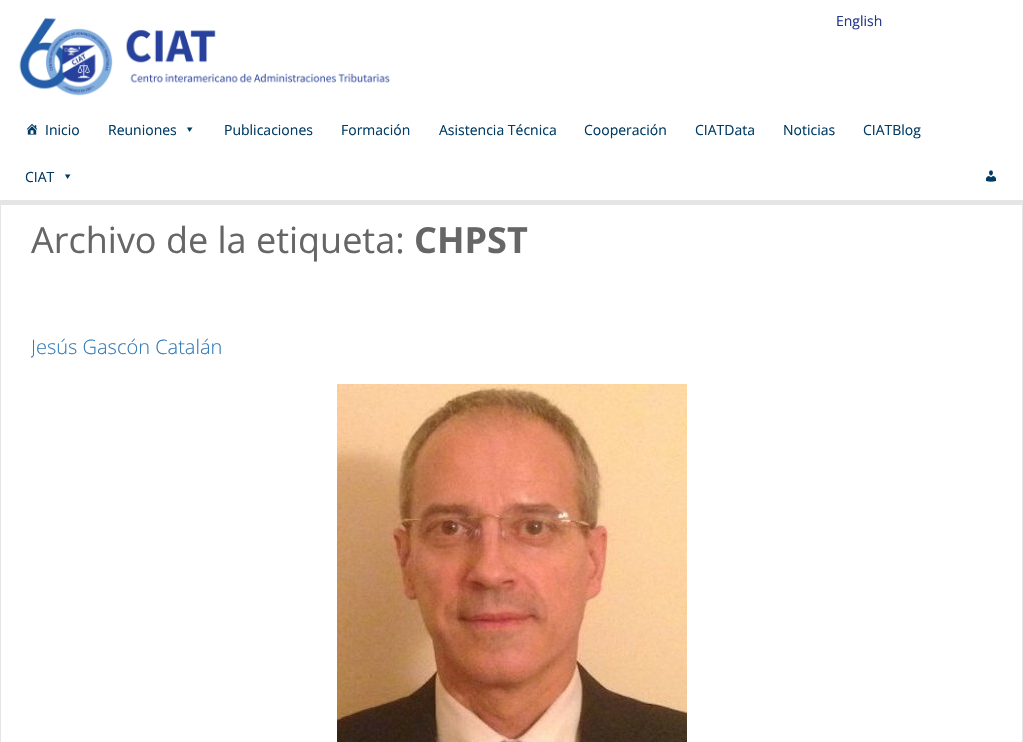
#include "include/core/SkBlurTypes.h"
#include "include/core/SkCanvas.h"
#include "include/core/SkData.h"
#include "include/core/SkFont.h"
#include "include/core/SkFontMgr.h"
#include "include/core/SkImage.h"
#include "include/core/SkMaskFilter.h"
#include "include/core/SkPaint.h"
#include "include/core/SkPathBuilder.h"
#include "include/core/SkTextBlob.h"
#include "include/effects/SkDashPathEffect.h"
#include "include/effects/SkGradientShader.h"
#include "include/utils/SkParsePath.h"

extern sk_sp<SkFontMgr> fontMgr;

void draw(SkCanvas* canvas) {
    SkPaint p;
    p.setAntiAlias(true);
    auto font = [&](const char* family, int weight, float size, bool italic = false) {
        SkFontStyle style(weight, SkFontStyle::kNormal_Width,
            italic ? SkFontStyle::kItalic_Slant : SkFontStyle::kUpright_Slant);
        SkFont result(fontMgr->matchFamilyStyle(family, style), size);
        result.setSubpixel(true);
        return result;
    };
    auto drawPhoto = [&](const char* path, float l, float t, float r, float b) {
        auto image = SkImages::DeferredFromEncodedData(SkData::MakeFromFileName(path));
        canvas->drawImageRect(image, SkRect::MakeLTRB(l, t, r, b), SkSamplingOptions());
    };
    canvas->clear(0xFFFFFFFF);
    p.setColor(0xFFE5E5E5);
    canvas->drawRect(SkRect::MakeLTRB(0, 200, 1023, 204), p);
    drawPhoto("media/1.png", 19, 17, 390, 96);
    auto font1 = font("Open Sans", 400, 14);
    p.setColor(0xFF23378B);
    canvas->drawString("English", 836, 26, font1, p);
    drawPhoto("media/2.png", 26, 123, 38, 135);
    p.setColor(0xFF003B64);
    canvas->drawString("Inicio", 45, 135, font1, p);
    canvas->drawString("Reuniones", 108, 135, font1, p);
    canvas->drawPath(SkPathBuilder().moveTo(192.5f, 127.5f).lineTo(189.5f, 132).lineTo(187, 127.5f).close().detach(), p);
    {
        const struct { const char* s; float x, y; } items[] = {
            {"Publicaciones", 224, 135},
            {"Formación", 341, 135},
            {"Asistencia Técnica", 439, 135},
            {"Cooperación", 584, 135},
            {"CIATData", 695, 135},
            {"Noticias", 783, 135},
            {"CIATBlog", 863, 135},
            {"CIAT", 25, 182},
        };
        for (auto [s, x, y] : items) {
            canvas->drawString(s, x, y, font1, p);
        }
    }
    canvas->drawPath(SkPathBuilder().moveTo(70.5f, 174.5f).lineTo(67.5f, 179).lineTo(65, 174.5f).close().detach(), p);
    drawPhoto("media/3.png", 985, 170, 997, 182);
    p.setStyle(SkPaint::kStroke_Style);
    p.setStrokeWidth(1);
    p.setColor(0xFFE5E5E5);
    canvas->drawRect(SkRect::MakeLTRB(0.5f, 204.5f, 1022.5f, 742.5f), p);
    auto font2 = font("Open Sans", 400, 36);
    p.setStyle(SkPaint::kFill_Style);
    p.setColor(0xFF666666);
    canvas->drawString("Archivo de la etiqueta:", 31, 253, font2, p);
    auto font3 = font("Open Sans", 700, 36);
    canvas->drawString("CHPST", 414, 253, font3, p);
    canvas->save();
    canvas->clipRect(SkRect::MakeLTRB(31, 326, 992, 374));
    auto font4 = font("Open Sans", 300, 20);
    p.setColor(0xFF337AB7);
    canvas->drawString("Jesús Gascón Catalán", 31, 354, font4, p);
    canvas->restore();
    drawPhoto("media/4.png", 337, 384, 687, 742);
}
